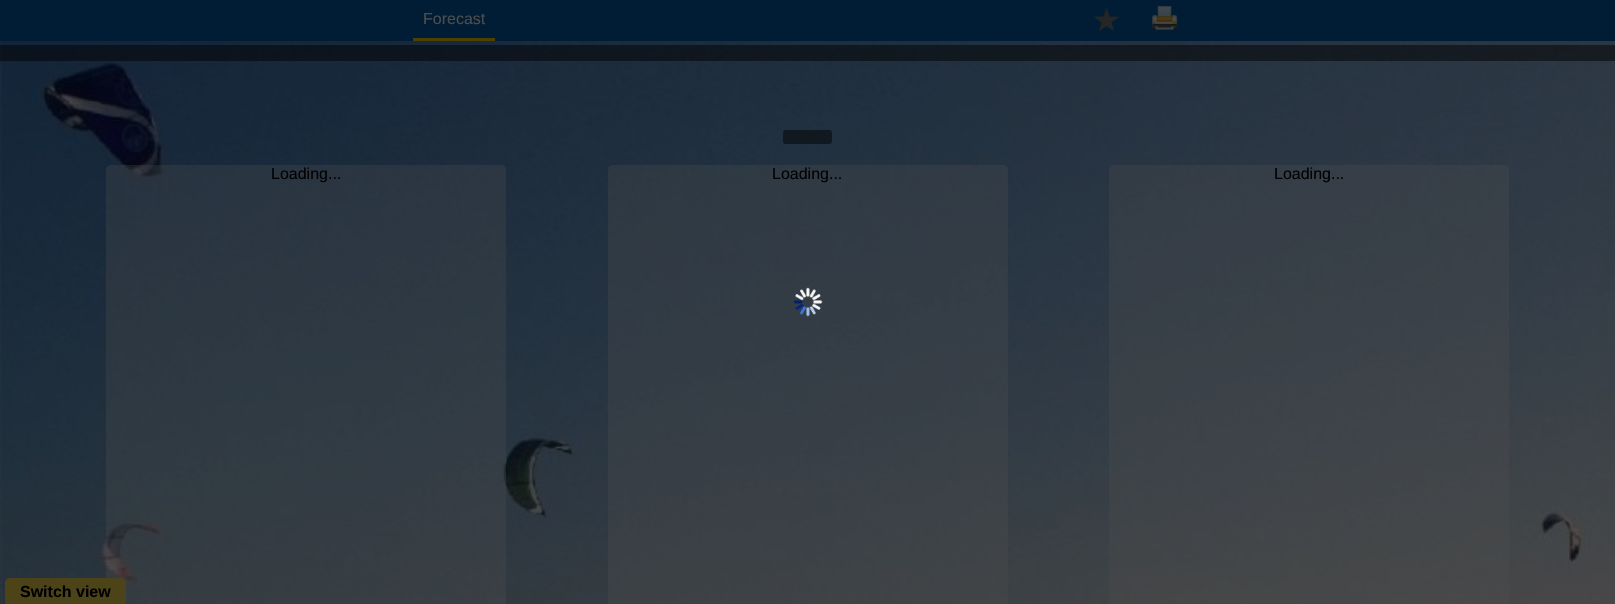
#include "include/core/SkBlurTypes.h"
#include "include/core/SkCanvas.h"
#include "include/core/SkData.h"
#include "include/core/SkFont.h"
#include "include/core/SkFontMgr.h"
#include "include/core/SkImage.h"
#include "include/core/SkMaskFilter.h"
#include "include/core/SkPaint.h"
#include "include/core/SkPathBuilder.h"
#include "include/core/SkTextBlob.h"
#include "include/effects/SkDashPathEffect.h"
#include "include/effects/SkGradientShader.h"
#include "include/utils/SkParsePath.h"

extern sk_sp<SkFontMgr> fontMgr;

void draw(SkCanvas* canvas) {
    SkPaint p;
    p.setAntiAlias(true);
    auto font = [&](const char* family, int weight, float size, bool italic = false) {
        SkFontStyle style(weight, SkFontStyle::kNormal_Width,
            italic ? SkFontStyle::kItalic_Slant : SkFontStyle::kUpright_Slant);
        SkFont result(fontMgr->matchFamilyStyle(family, style), size);
        result.setSubpixel(true);
        return result;
    };
    auto drawPhoto = [&](const char* path, float l, float t, float r, float b) {
        auto image = SkImages::DeferredFromEncodedData(SkData::MakeFromFileName(path));
        canvas->drawImageRect(image, SkRect::MakeLTRB(l, t, r, b), SkSamplingOptions());
    };
    canvas->clear(0xFFFFFFFF);
    p.setColor(0xFF001D35);
    canvas->drawRect(SkRect::MakeLTRB(0, 0, 1615, 41), p);
    p.setColor(0xFF4D4100);
    canvas->drawRect(SkRect::MakeLTRB(413, 38, 495, 41), p);
    auto font1 = font("Liberation Sans", 400, 16);
    p.setColor(0xFF4D4D4D);
    canvas->drawString("Forecast", 423, 24, font1, p);
    drawPhoto("media/1.png", 1093, 7, 1120, 32);
    drawPhoto("media/2.png", 1151, 6, 1178, 30);
    drawPhoto("media/3.png", 0, 41, 1615, 604);
    p.setColor(0x80000000);
    canvas->drawRect(SkRect::MakeLTRB(0, 45, 1615, 61), p);
    canvas->drawRoundRect(SkRect::MakeLTRB(783, 130, 832, 144), 3, 3, p);
    p.setColor(0x4D4D4D4D);
    canvas->drawRoundRect(SkRect::MakeLTRB(106, 165, 506, 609), 5, 5, p);
    p.setColor(0xFF000000);
    canvas->drawString("Loading...", 271, 179, font1, p);
    p.setColor(0x4D4D4D4D);
    canvas->drawRoundRect(SkRect::MakeLTRB(608, 165, 1008, 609), 5, 5, p);
    p.setColor(0xFF000000);
    canvas->drawString("Loading...", 772, 179, font1, p);
    p.setColor(0x4D4D4D4D);
    canvas->drawRoundRect(SkRect::MakeLTRB(1109, 165, 1509, 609), 5, 5, p);
    p.setColor(0xFF000000);
    canvas->drawString("Loading...", 1274, 179, font1, p);
    p.setColor(0xFF4C4319);
    canvas->drawRoundRect(SkRect::MakeLTRB(5, 578, 126, 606), 5, 5, p);
    auto font2 = font("Liberation Sans", 700, 16);
    p.setColor(0xFF000000);
    canvas->drawString("Switch view", 20, 597, font2, p);
    drawPhoto("media/4.png", 793, 287, 823, 317);
}
